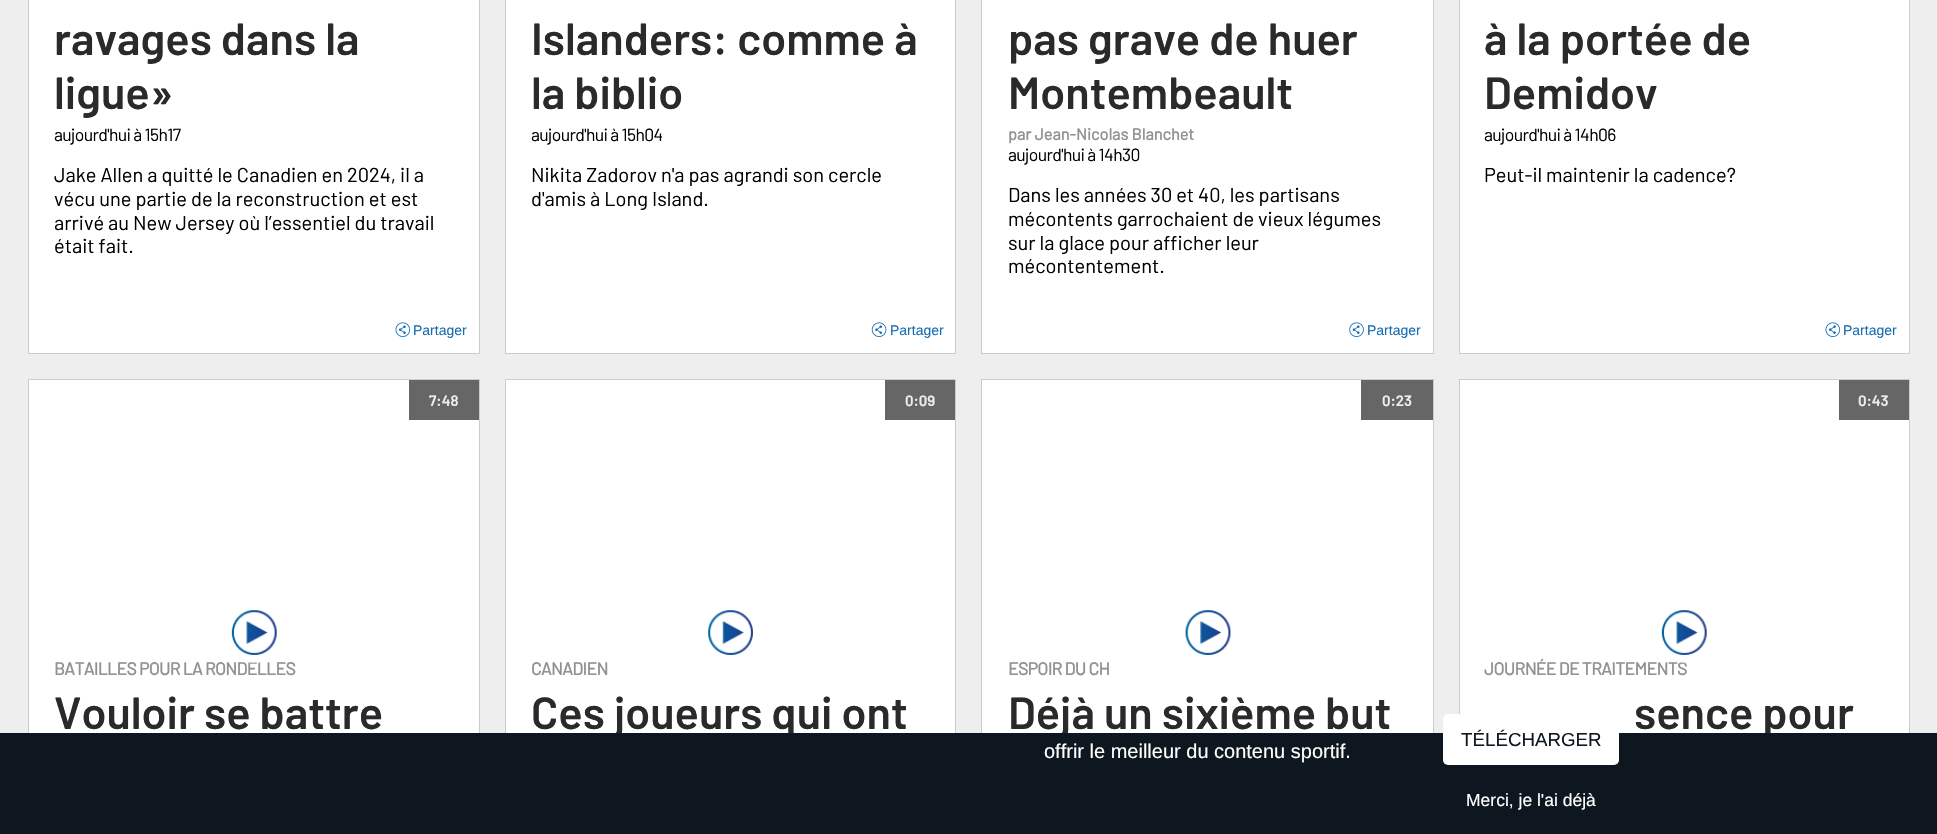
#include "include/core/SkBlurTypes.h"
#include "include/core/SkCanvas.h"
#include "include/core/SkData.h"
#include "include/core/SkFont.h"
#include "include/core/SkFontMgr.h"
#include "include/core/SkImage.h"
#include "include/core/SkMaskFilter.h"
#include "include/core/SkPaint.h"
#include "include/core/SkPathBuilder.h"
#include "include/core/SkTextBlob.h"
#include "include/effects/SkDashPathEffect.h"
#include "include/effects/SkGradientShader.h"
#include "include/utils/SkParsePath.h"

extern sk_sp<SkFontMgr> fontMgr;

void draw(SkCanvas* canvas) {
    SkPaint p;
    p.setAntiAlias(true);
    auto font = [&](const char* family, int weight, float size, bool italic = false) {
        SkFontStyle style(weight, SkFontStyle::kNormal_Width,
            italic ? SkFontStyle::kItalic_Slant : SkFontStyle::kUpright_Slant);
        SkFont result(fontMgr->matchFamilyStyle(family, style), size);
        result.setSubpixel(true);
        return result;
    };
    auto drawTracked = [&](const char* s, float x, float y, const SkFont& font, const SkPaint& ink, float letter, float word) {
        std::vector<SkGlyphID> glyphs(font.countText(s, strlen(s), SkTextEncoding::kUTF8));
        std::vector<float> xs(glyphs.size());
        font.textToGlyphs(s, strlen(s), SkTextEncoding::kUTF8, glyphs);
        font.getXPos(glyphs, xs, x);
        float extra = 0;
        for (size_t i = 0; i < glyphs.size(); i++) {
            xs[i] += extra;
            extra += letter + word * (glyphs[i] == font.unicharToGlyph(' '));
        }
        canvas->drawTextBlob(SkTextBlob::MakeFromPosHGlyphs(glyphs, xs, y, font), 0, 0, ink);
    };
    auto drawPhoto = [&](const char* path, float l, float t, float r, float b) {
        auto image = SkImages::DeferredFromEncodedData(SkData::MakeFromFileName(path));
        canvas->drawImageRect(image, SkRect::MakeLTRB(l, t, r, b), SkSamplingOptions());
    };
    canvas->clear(0xFFEEEEEE);
    p.setColor(0xFFFFFFFF);
    canvas->drawRect(SkRect::MakeLTRB(28.5f, -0.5f, 479.5f, 353.5f), p);
    p.setStyle(SkPaint::kStroke_Style);
    p.setStrokeWidth(1);
    p.setColor(0xFFCCCCCC);
    canvas->drawRect(SkRect::MakeLTRB(28.5f, -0.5f, 479.5f, 353.5f), p);
    auto font1 = font("Barlow", 600, 45);
    p.setStyle(SkPaint::kFill_Style);
    p.setColor(0xFF2A2A2A);
    canvas->drawString("ravages dans la", 54, 55, font1, p);
    canvas->drawString("ligue»", 54, 109, font1, p);
    auto font2 = font("Barlow", 400, 17.5f);
    p.setColor(0xFF000000);
    drawTracked("aujourd'hui à 15h17", 54, 141, font2, p, -0.6f, 0);
    auto font3 = font("Barlow", 400, 20);
    {
        const struct { const char* s; float x, y; } items[] = {
            {"Jake Allen a quitté le Canadien en 2024, il a", 54, 182},
            {"vécu une partie de la reconstruction et est", 54, 206},
            {"arrivé au New Jersey où l’essentiel du travail", 54, 230},
            {"était fait.", 54, 253},
        };
        for (auto [s, x, y] : items) {
            canvas->drawString(s, x, y, font3, p);
        }
    }
    drawPhoto("media/1.png", 395, 322, 411, 337);
    auto font4 = font("Liberation Sans", 400, 14);
    p.setColor(0xFF176DB1);
    canvas->drawString("Partager", 413, 335, font4, p);
    p.setColor(0xFFFFFFFF);
    canvas->drawRect(SkRect::MakeLTRB(505.5f, -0.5f, 955.5f, 353.5f), p);
    p.setStyle(SkPaint::kStroke_Style);
    p.setColor(0xFFCCCCCC);
    canvas->drawRect(SkRect::MakeLTRB(505.5f, -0.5f, 955.5f, 353.5f), p);
    p.setStyle(SkPaint::kFill_Style);
    p.setColor(0xFF2A2A2A);
    canvas->drawString("Islanders: comme à", 531, 55, font1, p);
    canvas->drawString("la biblio", 531, 109, font1, p);
    p.setColor(0xFF000000);
    drawTracked("aujourd'hui à 15h04", 531, 141, font2, p, -0.6f, 0);
    canvas->drawString("Nikita Zadorov n'a pas agrandi son cercle", 531, 182, font3, p);
    canvas->drawString("d'amis à Long Island.", 531, 206, font3, p);
    drawPhoto("media/2.png", 871, 322, 887, 337);
    p.setColor(0xFF176DB1);
    canvas->drawString("Partager", 890, 335, font4, p);
    p.setColor(0xFFFFFFFF);
    canvas->drawRect(SkRect::MakeLTRB(981.5f, -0.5f, 1433.5f, 353.5f), p);
    p.setStyle(SkPaint::kStroke_Style);
    p.setColor(0xFFCCCCCC);
    canvas->drawRect(SkRect::MakeLTRB(981.5f, -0.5f, 1433.5f, 353.5f), p);
    p.setStyle(SkPaint::kFill_Style);
    p.setColor(0xFF2A2A2A);
    canvas->drawString("pas grave de huer", 1008, 55, font1, p);
    canvas->drawString("Montembeault", 1008, 109, font1, p);
    auto font5 = font("Barlow", 700, 16.25f);
    p.setColor(0xFF929292);
    canvas->drawString("par Jean-Nicolas Blanchet", 1008, 140, font5, p);
    p.setColor(0xFF000000);
    drawTracked("aujourd'hui à 14h30", 1008, 161, font2, p, -0.6f, 0);
    {
        const struct { const char* s; float x, y; } items[] = {
            {"Dans les années 30 et 40, les partisans", 1008, 202},
            {"mécontents garrochaient de vieux légumes", 1008, 226},
            {"sur la glace pour afficher leur", 1008, 250},
            {"mécontentement.", 1008, 273},
        };
        for (auto [s, x, y] : items) {
            canvas->drawString(s, x, y, font3, p);
        }
    }
    drawPhoto("media/3.png", 1349, 322, 1364, 337);
    p.setColor(0xFF176DB1);
    canvas->drawString("Partager", 1367, 335, font4, p);
    p.setColor(0xFFFFFFFF);
    canvas->drawRect(SkRect::MakeLTRB(1459.5f, -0.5f, 1909.5f, 353.5f), p);
    p.setStyle(SkPaint::kStroke_Style);
    p.setColor(0xFFCCCCCC);
    canvas->drawRect(SkRect::MakeLTRB(1459.5f, -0.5f, 1909.5f, 353.5f), p);
    p.setStyle(SkPaint::kFill_Style);
    p.setColor(0xFF2A2A2A);
    canvas->drawString("à la portée de", 1484, 55, font1, p);
    canvas->drawString("Demidov", 1484, 109, font1, p);
    p.setColor(0xFF000000);
    drawTracked("aujourd'hui à 14h06", 1484, 141, font2, p, -0.6f, 0);
    canvas->drawString("Peut-il maintenir la cadence?", 1484, 182, font3, p);
    drawPhoto("media/1.png", 1825, 322, 1841, 337);
    p.setColor(0xFF176DB1);
    canvas->drawString("Partager", 1843, 335, font4, p);
    p.setColor(0xFFFFFFFF);
    canvas->drawRect(SkRect::MakeLTRB(29, 380, 479, 733), p);
    p.setStyle(SkPaint::kStroke_Style);
    p.setColor(0xFFCCCCCC);
    canvas->drawRect(SkRect::MakeLTRB(28.5f, 379.5f, 479.5f, 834.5f), p);
    p.setStyle(SkPaint::kFill_Style);
    p.setColor(0xFF666666);
    canvas->drawRect(SkRect::MakeLTRB(409, 380, 479, 420), p);
    auto font6 = font("Barlow", 600, 15);
    p.setColor(0xFFEEEEEE);
    canvas->drawString("7:48", 429, 406, font6, p);
    auto font7 = font("Barlow", 700, 17.5f);
    p.setColor(0xFF929292);
    drawTracked("BATAILLES POUR LA RONDELLES", 54, 675, font7, p, -0.6f, 0);
    drawPhoto("media/4.png", 231, 610, 277, 664);
    p.setColor(0xFF2A2A2A);
    canvas->drawString("Vouloir se battre", 54, 729, font1, p);
    p.setColor(0xFFFFFFFF);
    canvas->drawRect(SkRect::MakeLTRB(506, 380, 955, 733), p);
    p.setStyle(SkPaint::kStroke_Style);
    p.setColor(0xFFCCCCCC);
    canvas->drawRect(SkRect::MakeLTRB(505.5f, 379.5f, 955.5f, 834.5f), p);
    p.setStyle(SkPaint::kFill_Style);
    p.setColor(0xFF666666);
    canvas->drawRect(SkRect::MakeLTRB(885, 380, 955, 420), p);
    p.setColor(0xFFEEEEEE);
    canvas->drawString("0:09", 905, 406, font6, p);
    drawPhoto("media/5.png", 708, 610, 753, 655);
    p.setColor(0xFF929292);
    drawTracked("CANADIEN", 531, 675, font7, p, -0.6f, 0);
    p.setColor(0xFF2A2A2A);
    canvas->drawString("Ces joueurs qui ont", 531, 729, font1, p);
    p.setColor(0xFFFFFFFF);
    canvas->drawRect(SkRect::MakeLTRB(982, 380, 1433, 733), p);
    p.setStyle(SkPaint::kStroke_Style);
    p.setColor(0xFFCCCCCC);
    canvas->drawRect(SkRect::MakeLTRB(981.5f, 379.5f, 1433.5f, 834.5f), p);
    p.setStyle(SkPaint::kFill_Style);
    p.setColor(0xFF666666);
    canvas->drawRect(SkRect::MakeLTRB(1361, 380, 1433, 420), p);
    p.setColor(0xFFEEEEEE);
    canvas->drawString("0:23", 1382, 406, font6, p);
    drawPhoto("media/6.png", 1185, 610, 1231, 655);
    p.setColor(0xFF929292);
    drawTracked("ESPOIR DU CH", 1008, 675, font7, p, -0.6f, 0);
    p.setColor(0xFF2A2A2A);
    canvas->drawString("Déjà un sixième but", 1008, 729, font1, p);
    p.setColor(0xFFFFFFFF);
    canvas->drawRect(SkRect::MakeLTRB(1460, 380, 1909, 733), p);
    p.setStyle(SkPaint::kStroke_Style);
    p.setColor(0xFFCCCCCC);
    canvas->drawRect(SkRect::MakeLTRB(1459.5f, 379.5f, 1909.5f, 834.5f), p);
    p.setStyle(SkPaint::kFill_Style);
    p.setColor(0xFF666666);
    canvas->drawRect(SkRect::MakeLTRB(1839, 380, 1909, 420), p);
    p.setColor(0xFFEEEEEE);
    canvas->drawString("0:43", 1858, 406, font6, p);
    p.setColor(0xFF929292);
    drawTracked("JOURNÉE DE TRAITEMENTS", 1484, 675, font7, p, -0.6f, 0);
    drawPhoto("media/7.png", 1661, 610, 1707, 664);
    p.setColor(0xFF2A2A2A);
    canvas->drawString("sence pour", 1634, 729, font1, p);
    p.setColor(0xFF0E1720);
    canvas->drawRect(SkRect::MakeLTRB(0, 733, 1937, 834), p);
    auto font8 = font("Liberation Sans", 400, 20);
    p.setColor(0xFFFFFFFF);
    canvas->drawString("offrir le meilleur du contenu sportif.", 1044, 758, font8, p);
    canvas->drawRoundRect(SkRect::MakeLTRB(1443, 714, 1619, 765), 5, 5, p);
    auto font9 = font("Liberation Sans", 400, 18.75f);
    p.setColor(0xFF0E1720);
    canvas->drawString("TÉLÉCHARGER", 1461, 746, font9, p);
    auto font10 = font("Liberation Sans", 400, 17.5f);
    p.setColor(0xFFFFFFFF);
    canvas->drawString("Merci, je l'ai déjà", 1466, 806, font10, p);
}
